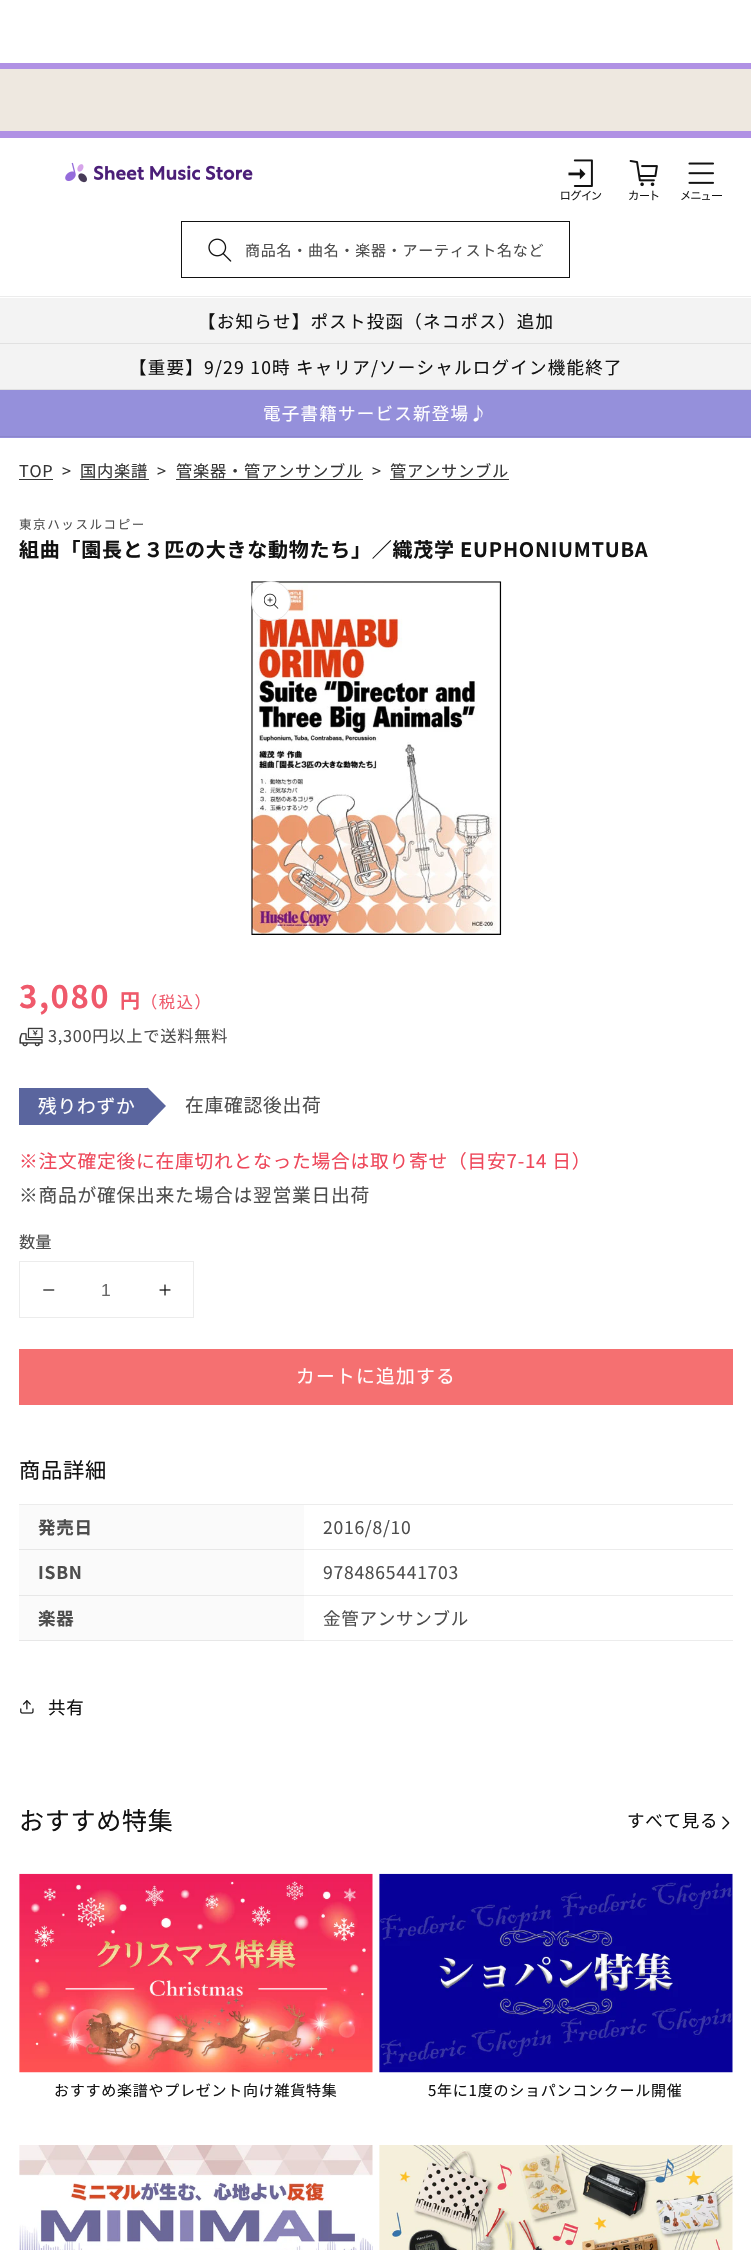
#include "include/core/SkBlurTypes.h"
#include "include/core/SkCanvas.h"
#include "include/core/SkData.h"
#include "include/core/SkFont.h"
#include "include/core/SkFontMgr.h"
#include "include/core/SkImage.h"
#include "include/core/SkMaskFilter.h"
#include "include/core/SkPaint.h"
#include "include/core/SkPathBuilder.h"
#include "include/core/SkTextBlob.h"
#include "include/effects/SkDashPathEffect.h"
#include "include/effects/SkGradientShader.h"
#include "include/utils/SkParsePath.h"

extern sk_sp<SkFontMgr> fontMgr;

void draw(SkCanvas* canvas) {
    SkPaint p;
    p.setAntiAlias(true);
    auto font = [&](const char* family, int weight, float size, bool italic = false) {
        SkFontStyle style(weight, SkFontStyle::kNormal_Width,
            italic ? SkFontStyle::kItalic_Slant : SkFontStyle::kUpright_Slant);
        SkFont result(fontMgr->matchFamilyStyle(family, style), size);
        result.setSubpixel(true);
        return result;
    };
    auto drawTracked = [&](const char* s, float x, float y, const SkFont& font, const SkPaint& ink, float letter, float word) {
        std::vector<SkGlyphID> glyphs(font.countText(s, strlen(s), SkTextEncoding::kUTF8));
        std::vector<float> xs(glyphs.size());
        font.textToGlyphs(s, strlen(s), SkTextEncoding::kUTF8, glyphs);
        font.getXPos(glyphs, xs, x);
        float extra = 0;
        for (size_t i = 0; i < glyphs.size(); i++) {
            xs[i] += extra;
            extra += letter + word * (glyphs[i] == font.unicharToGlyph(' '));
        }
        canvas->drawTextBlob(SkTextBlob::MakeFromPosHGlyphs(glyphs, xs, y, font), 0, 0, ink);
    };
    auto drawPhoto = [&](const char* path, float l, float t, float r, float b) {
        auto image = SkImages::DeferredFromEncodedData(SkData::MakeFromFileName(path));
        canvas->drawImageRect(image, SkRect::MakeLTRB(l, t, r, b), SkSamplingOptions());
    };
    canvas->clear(0xFFFFFFFF);
    {
        const struct { float l, t, r, b; SkColor color; } items[] = {
            {0, 63, 751, 69, 0xFFB091E4},
            {0, 69, 751, 131, 0xFFEEE8E0},
            {0, 131, 751, 138, 0xFFB091E4},
            {0, 296, 751, 297, 0xFFECECEC},
        };
        for (auto [l, t, r, b, color] : items) {
            p.setColor(color);
            canvas->drawRect(SkRect::MakeLTRB(l, t, r, b), p);
        }
    }
    drawPhoto("media/1.png", 65, 162, 253, 183);
    drawPhoto("media/2.png", 561, 159, 602, 201);
    drawPhoto("media/3.png", 629, 160, 659, 201);
    drawPhoto("media/4.png", 681, 162, 722, 200);
    p.setStyle(SkPaint::kStroke_Style);
    p.setStrokeWidth(1);
    p.setColor(0xFF121212);
    canvas->drawRect(SkRect::MakeLTRB(181.5f, 221.5f, 569.5f, 277.5f), p);
    drawPhoto("media/5.png", 208, 238, 232, 262);
    auto font1 = font("Noto Sans JP", 400, 15);
    p.setStyle(SkPaint::kFill_Style);
    p.setColor(0xFF4D4D4D);
    drawTracked("商品名・曲名・楽器・アーティスト名など", 245, 256, font1, p, 0.75f, 0);
    p.setColor(0xFFF3F3F3);
    canvas->drawRect(SkRect::MakeLTRB(0, 298, 751, 343), p);
    p.setColor(0xFFE1E1E1);
    canvas->drawRect(SkRect::MakeLTRB(0, 343, 751, 344), p);
    auto font2 = font("Noto Sans JP", 400, 17.5f);
    p.setColor(0xFF121212);
    drawTracked("【お知らせ】ポスト投函（ネコポス）追加", 198, 328, font2, p, 1.25f, 0);
    p.setColor(0xFFF3F3F3);
    canvas->drawRect(SkRect::MakeLTRB(0, 344, 751, 389), p);
    p.setColor(0xFFE1E1E1);
    canvas->drawRect(SkRect::MakeLTRB(0, 389, 751, 390), p);
    p.setColor(0xFF121212);
    drawTracked("【重要】9/29 10時 キャリア/ソーシャルログイン機能終了", 129, 374, font2, p, 1.25f, 0);
    p.setColor(0xFF9590DB);
    canvas->drawRect(SkRect::MakeLTRB(0, 390, 751, 438), p);
    p.setColor(0xFF8B86CB);
    canvas->drawRect(SkRect::MakeLTRB(0, 436, 751, 437), p);
    p.setColor(0xFFFFFFFF);
    drawTracked("電子書籍サービス新登場♪", 263, 420, font2, p, 1.25f, 0);
    auto font3 = font("Noto Sans JP", 400, 16.25f);
    p.setColor(0xFF363636);
    drawTracked("TOP", 19, 477, font3, p, 0.75f, 0);
    canvas->drawRect(SkRect::MakeLTRB(19, 479, 53, 480), p);
    drawTracked(">", 62, 477, font3, p, 0.75f, 0);
    drawTracked("国内楽譜", 80, 477, font3, p, 0.75f, 0);
    canvas->drawRect(SkRect::MakeLTRB(80, 479, 149, 480), p);
    drawTracked(">", 157, 477, font3, p, 0.75f, 0);
    drawTracked("管楽器・管アンサンブル", 176, 477, font3, p, 0.75f, 0);
    canvas->drawRect(SkRect::MakeLTRB(176, 479, 363, 480), p);
    drawTracked(">", 372, 477, font3, p, 0.75f, 0);
    drawTracked("管アンサンブル", 390, 477, font3, p, 0.75f, 0);
    canvas->drawRect(SkRect::MakeLTRB(390, 479, 509, 480), p);
    auto font4 = font("Noto Sans JP", 400, 12.5f);
    p.setColor(0xFF4D4D4D);
    drawTracked("東京ハッスルコピー", 19, 529, font4, p, 1.6f, 0);
    auto font5 = font("Noto Sans JP", 700, 20);
    p.setColor(0xFF121212);
    drawTracked("組曲「園長と３匹の大きな動物たち」／織茂学 EUPHONIUMTUBA", 19, 557, font5, p, 0.75f, 0);
    drawPhoto("media/6.png", 251, 581, 502, 935);
    p.setColor(0xFFFFFFFF);
    canvas->drawCircle(271, 601, 20, p);
    p.setStyle(SkPaint::kStroke_Style);
    p.setColor(0x1A121212);
    canvas->drawCircle(271, 601, 19.5f, p);
    drawPhoto("media/7.png", 264, 593, 279, 609);
    auto font6 = font("Noto Sans JP", 700, 31);
    p.setStyle(SkPaint::kFill_Style);
    p.setColor(0xFFEF596B);
    drawTracked("3,080", 19, 1008, font6, p, 1.6f, 0);
    drawTracked("円", 120, 1008, font5, p, 1.6f, 0);
    drawTracked("（税込）", 141, 1008, font3, p, 1.6f, 0);
    drawPhoto("media/8.png", 19, 1027, 43, 1047);
    p.setColor(0xFF4D4D4D);
    drawTracked("3,300円以上で送料無料", 48, 1042, font3, p, 0.75f, 0);
    p.setColor(0xFF5A659E);
    canvas->drawRect(SkRect::MakeLTRB(19, 1088, 148, 1125), p);
    auto font7 = font("Noto Sans JP", 400, 18.75f);
    p.setColor(0xFFFFFFFF);
    drawTracked("残りわずか", 38, 1113, font7, p, 0.75f, 0);
    p.setColor(0xFF5A659E);
    canvas->drawPath(SkPathBuilder().moveTo(147.5f, 1125).lineTo(147.5f, 1087.5f).lineTo(166, 1106).close().detach(), p);
    p.setColor(0xFF4D4D4D);
    drawTracked("在庫確認後出荷", 185, 1112, font7, p, 0.75f, 0);
    p.setColor(0xFFEE475A);
    drawTracked("※注文確定後に在庫切れとなった場合は取り寄せ（目安7-14 日）", 19, 1168, font7, p, 0.75f, 0);
    p.setColor(0xFF4D4D4D);
    drawTracked("※商品が確保出来た場合は翌営業日出荷", 19, 1202, font7, p, 0.75f, 0);
    canvas->drawString("数量", 19, 1248, font3, p);
    p.setStyle(SkPaint::kStroke_Style);
    p.setColor(0xFFECECEC);
    canvas->drawRect(SkRect::MakeLTRB(19.5f, 1261.5f, 193.5f, 1317.5f), p);
    drawPhoto("media/9.png", 43, 1289, 55, 1291);
    auto font8 = font("Liberation Sans", 400, 17.5f);
    p.setStyle(SkPaint::kFill_Style);
    p.setColor(0xFF686868);
    canvas->drawString("1", 101, 1296, font8, p);
    drawPhoto("media/10.png", 159, 1284, 171, 1296);
    p.setColor(0xFFF57071);
    canvas->drawRect(SkRect::MakeLTRB(19, 1349, 733, 1405), p);
    p.setColor(0xFFFFFFFF);
    drawTracked("カートに追加する", 296, 1383, font7, p, 1.25f, 0);
    auto font9 = font("Noto Sans JP", 400, 21.25f);
    p.setColor(0xFF121212);
    drawTracked("商品詳細", 19, 1478, font9, p, 0.75f, 0);
    {
        const struct { float l, t, r, b; SkColor color; } items[] = {
            {19, 1504, 733, 1505, 0xFFECECEC},
            {19, 1505, 304, 1549, 0xFFFAFAFA},
            {19, 1549, 304, 1550, 0xFFE7E7E7},
        };
        for (auto [l, t, r, b, color] : items) {
            p.setColor(color);
            canvas->drawRect(SkRect::MakeLTRB(l, t, r, b), p);
        }
    }
    auto font10 = font("Noto Sans JP", 700, 17.5f);
    p.setColor(0xFF4D4D4D);
    drawTracked("発売日", 38, 1534, font10, p, 0.75f, 0);
    p.setColor(0xFFECECEC);
    canvas->drawRect(SkRect::MakeLTRB(304, 1549, 733, 1550), p);
    p.setColor(0xFF4D4D4D);
    drawTracked("2016/8/10", 323, 1534, font2, p, 0.75f, 0);
    p.setColor(0xFFFAFAFA);
    canvas->drawRect(SkRect::MakeLTRB(19, 1550, 304, 1595), p);
    p.setColor(0xFFE7E7E7);
    canvas->drawRect(SkRect::MakeLTRB(19, 1595, 304, 1596), p);
    p.setColor(0xFF4D4D4D);
    drawTracked("ISBN", 38, 1579, font10, p, 0.75f, 0);
    p.setColor(0xFFECECEC);
    canvas->drawRect(SkRect::MakeLTRB(304, 1595, 733, 1596), p);
    p.setColor(0xFF4D4D4D);
    drawTracked("9784865441703", 323, 1579, font2, p, 0.75f, 0);
    p.setColor(0xFFFAFAFA);
    canvas->drawRect(SkRect::MakeLTRB(19, 1596, 304, 1640), p);
    p.setColor(0xFFE7E7E7);
    canvas->drawRect(SkRect::MakeLTRB(19, 1640, 304, 1641), p);
    p.setColor(0xFF4D4D4D);
    drawTracked("楽器", 38, 1625, font10, p, 0.75f, 0);
    p.setColor(0xFFECECEC);
    canvas->drawRect(SkRect::MakeLTRB(304, 1640, 733, 1641), p);
    p.setColor(0xFF4D4D4D);
    drawTracked("金管アンサンブル", 323, 1625, font2, p, 0.75f, 0);
    drawPhoto("media/11.png", 20, 1700, 34, 1714);
    p.setColor(0xFF121212);
    drawTracked("共有", 48, 1714, font2, p, 0.75f, 0);
    auto font11 = font("Noto Sans JP", 400, 25);
    drawTracked("おすすめ特集", 19, 1830, font11, p, 0.75f, 0);
    drawTracked("すべて見る", 627, 1827, font2, p, 0.75f, 0);
    drawPhoto("media/12.png", 722, 1816, 730, 1830);
    drawPhoto("media/13.png", 19, 1873, 373, 2073);
    drawTracked("おすすめ楽譜やプレゼント向け雑貨特集", 54, 2096, font1, p, 0.75f, 0);
    drawPhoto("media/14.png", 379, 1873, 733, 2073);
    drawTracked("5年に1度のショパンコンクール開催", 428, 2096, font1, p, 0.75f, 0);
    drawPhoto("media/15.png", 19, 2145, 373, 2250);
    drawPhoto("media/16.png", 379, 2145, 733, 2250);
}
